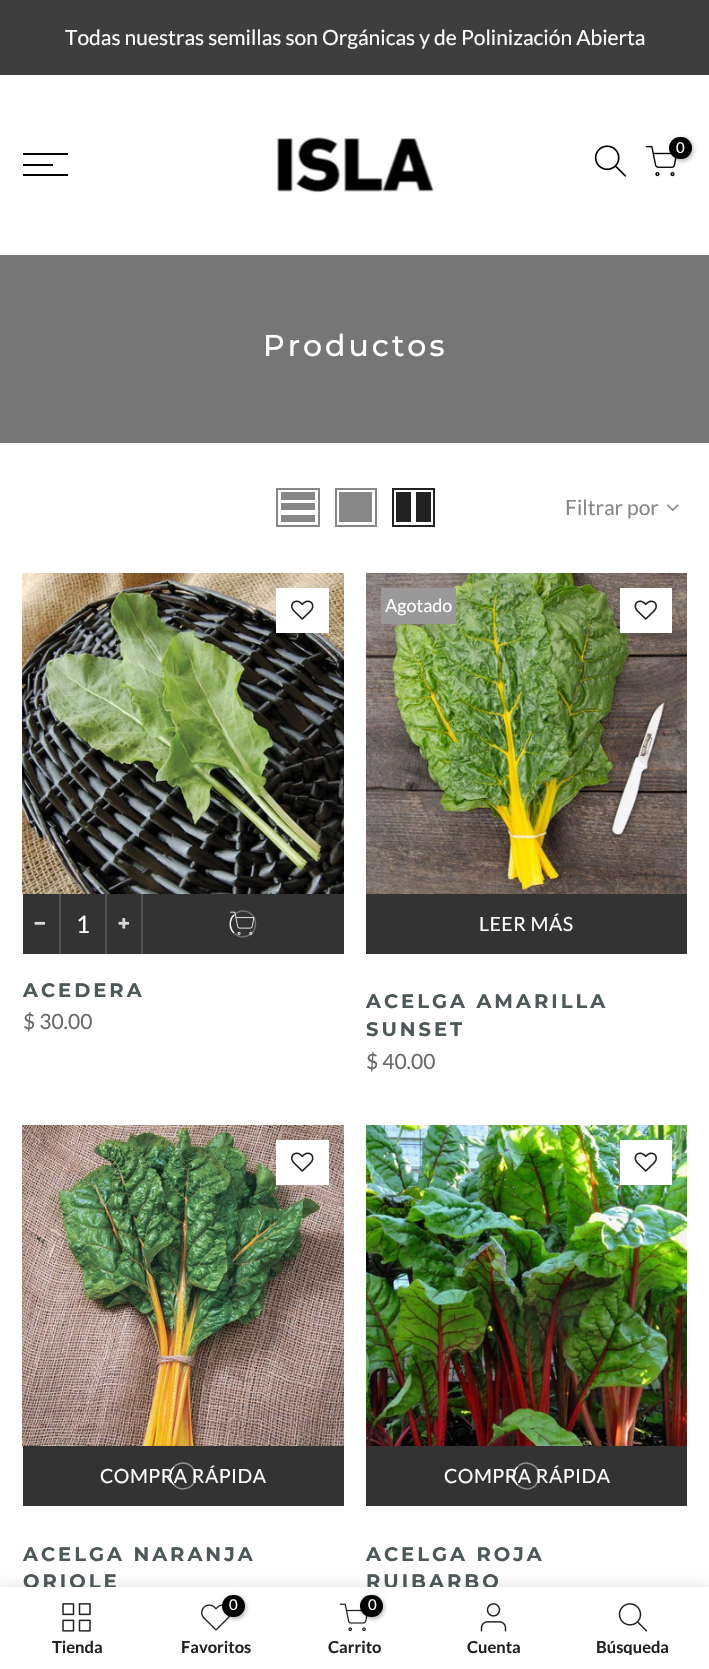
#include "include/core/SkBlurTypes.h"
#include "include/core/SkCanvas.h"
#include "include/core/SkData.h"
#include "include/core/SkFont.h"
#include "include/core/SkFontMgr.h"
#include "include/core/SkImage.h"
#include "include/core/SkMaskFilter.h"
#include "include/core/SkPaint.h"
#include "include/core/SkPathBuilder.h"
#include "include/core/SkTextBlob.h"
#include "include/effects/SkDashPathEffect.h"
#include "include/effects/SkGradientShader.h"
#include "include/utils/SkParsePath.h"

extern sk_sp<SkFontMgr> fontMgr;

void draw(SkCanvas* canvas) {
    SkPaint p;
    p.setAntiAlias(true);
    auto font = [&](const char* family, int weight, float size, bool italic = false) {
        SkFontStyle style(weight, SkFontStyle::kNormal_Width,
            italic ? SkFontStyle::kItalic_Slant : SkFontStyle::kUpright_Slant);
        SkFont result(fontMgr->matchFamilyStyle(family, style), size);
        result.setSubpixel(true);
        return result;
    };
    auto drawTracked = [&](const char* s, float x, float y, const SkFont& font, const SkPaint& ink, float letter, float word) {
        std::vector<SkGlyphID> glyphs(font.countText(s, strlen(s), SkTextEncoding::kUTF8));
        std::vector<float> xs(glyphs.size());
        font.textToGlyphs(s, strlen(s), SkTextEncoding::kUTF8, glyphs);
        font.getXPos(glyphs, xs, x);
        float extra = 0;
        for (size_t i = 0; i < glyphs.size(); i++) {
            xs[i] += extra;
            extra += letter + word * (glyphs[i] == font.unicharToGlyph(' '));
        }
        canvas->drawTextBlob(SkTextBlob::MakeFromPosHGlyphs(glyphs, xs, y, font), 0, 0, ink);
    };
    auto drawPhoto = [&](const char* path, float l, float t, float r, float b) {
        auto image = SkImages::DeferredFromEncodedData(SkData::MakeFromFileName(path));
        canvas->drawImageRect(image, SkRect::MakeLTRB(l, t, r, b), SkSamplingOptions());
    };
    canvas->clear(0xFFFFFFFF);
    p.setColor(0xFF3E3E3E);
    canvas->drawRect(SkRect::MakeLTRB(0, 0, 709, 75), p);
    auto font1 = font("Lato", 400, 21);
    p.setColor(0xFFFFFFFF);
    canvas->drawString("Todas nuestras semillas son Orgánicas y de Polinización Abierta", 65, 45, font1, p);
    drawPhoto("media/1.png", 276, 136, 435, 193);
    drawPhoto("media/2.png", 594, 145, 627, 177);
    drawPhoto("media/3.png", 645, 145, 677, 177);
    p.setColor(0x4D000000);
    p.setMaskFilter(SkMaskFilter::MakeBlur(kNormal_SkBlurStyle, 2));
    canvas->drawRoundRect(SkRect::MakeLTRB(671, 138, 693, 161), 11, 11, p);
    p.setMaskFilter(nullptr);
    p.setColor(0xFF000000);
    canvas->drawRoundRect(SkRect::MakeLTRB(669, 137, 692, 159), 11, 11, p);
    auto font2 = font("Lato", 400, 15);
    p.setColor(0xFFFFFFFF);
    canvas->drawString("0", 676, 153, font2, p);
    {
        const struct { float l, t, r, b; SkColor color; } items[] = {
            {23, 153, 68, 155, 0xFF000000},
            {23, 164, 53, 166, 0xFF000000},
            {23, 174, 68, 176, 0xFF000000},
            {0, 255, 709, 443, 0xFF767676},
        };
        for (auto [l, t, r, b, color] : items) {
            p.setColor(color);
            canvas->drawRect(SkRect::MakeLTRB(l, t, r, b), p);
        }
    }
    auto font3 = font("Montserrat", 500, 30);
    p.setColor(0xFFFFFFFF);
    drawTracked("Productos", 263, 356, font3, p, 3, 0);
    p.setStyle(SkPaint::kStroke_Style);
    p.setStrokeWidth(2);
    p.setColor(0xFF878787);
    canvas->drawRect(SkRect::MakeLTRB(277, 489, 319, 526), p);
    p.setStyle(SkPaint::kFill_Style);
    {
        const struct { float l, t, r, b; SkColor color; } items[] = {
            {281, 515, 315, 522, 0xFF878787},
            {281, 503, 315, 510, 0xFF878787},
            {281, 492, 315, 500, 0xFF878787},
        };
        for (auto [l, t, r, b, color] : items) {
            p.setColor(color);
            canvas->drawRect(SkRect::MakeLTRB(l, t, r, b), p);
        }
    }
    p.setStyle(SkPaint::kStroke_Style);
    canvas->drawRect(SkRect::MakeLTRB(336, 489, 376, 526), p);
    p.setStyle(SkPaint::kFill_Style);
    canvas->drawRect(SkRect::MakeLTRB(339, 492, 372, 522), p);
    p.setStyle(SkPaint::kStroke_Style);
    p.setColor(0xFF222222);
    canvas->drawRect(SkRect::MakeLTRB(393, 489, 434, 526), p);
    p.setStyle(SkPaint::kFill_Style);
    canvas->drawRect(SkRect::MakeLTRB(416, 492, 431, 522), p);
    canvas->drawRect(SkRect::MakeLTRB(396, 492, 411, 522), p);
    p.setColor(0xFF878787);
    canvas->drawString("Filtrar por", 565, 515, font1, p);
    drawPhoto("media/4.png", 667, 504, 679, 512);
    drawPhoto("media/5.png", 22, 573, 344, 894);
    p.setColor(0xFFFFFFFF);
    canvas->drawRect(SkRect::MakeLTRB(276, 588, 329, 633), p);
    drawPhoto("media/6.png", 291, 600, 314, 620);
    p.setColor(0xFF333333);
    canvas->drawRect(SkRect::MakeLTRB(23, 894, 344, 954), p);
    p.setColor(0xFF525252);
    canvas->drawRect(SkRect::MakeLTRB(59, 894, 61, 954), p);
    drawPhoto("media/7.png", 34, 921, 46, 925);
    canvas->drawRect(SkRect::MakeLTRB(141, 894, 143, 954), p);
    canvas->drawRect(SkRect::MakeLTRB(105, 894, 107, 954), p);
    drawPhoto("media/8.png", 118, 918, 130, 929);
    auto font4 = font("Lato", 400, 24);
    p.setColor(0xFFFFFFFF);
    canvas->drawString("1", 76, 933, font4, p);
    drawPhoto("media/9.png", 230, 911, 255, 935);
    p.setStyle(SkPaint::kStroke_Style);
    p.setStrokeWidth(1.5f);
    p.setColor(0x4DFFFFFF);
    canvas->drawPath(SkPathBuilder().moveTo(234, 915).cubicTo(236.5f, 912.5f, 239.5f, 911, 243, 911).cubicTo(258, 911, 260.5f, 933.5f, 245.5f, 936.5f).cubicTo(241.5f, 937.5f, 237, 936, 234, 933).detach(), p);
    p.setColor(0xFFFFFFFF);
    canvas->drawPath(SkPathBuilder().moveTo(234, 933).cubicTo(229, 928, 229, 920, 234, 915).detach(), p);
    auto font5 = font("Montserrat", 700, 19.5f);
    p.setStyle(SkPaint::kFill_Style);
    p.setColor(0xFF4D5959);
    drawTracked("ACEDERA", 23, 997, font5, p, 3, 0);
    p.setColor(0xFF696969);
    canvas->drawString("$ 30.00", 23, 1029, font1, p);
    drawPhoto("media/10.png", 366, 573, 687, 894);
    p.setColor(0xFF999999);
    canvas->drawRect(SkRect::MakeLTRB(381, 588, 456, 624), p);
    auto font6 = font("Lato", 400, 18);
    p.setColor(0xFFFFFFFF);
    canvas->drawString("Agotado", 385, 612, font6, p);
    canvas->drawRect(SkRect::MakeLTRB(620, 588, 672, 633), p);
    drawPhoto("media/11.png", 634, 600, 657, 620);
    p.setColor(0xFF333333);
    canvas->drawRect(SkRect::MakeLTRB(366, 894, 687, 954), p);
    auto font7 = font("Lato", 400, 19.5f);
    p.setColor(0xFFFFFFFF);
    drawTracked("LEER MÁS", 479, 931, font7, p, 0.5f, 0);
    p.setColor(0xFF4D5959);
    drawTracked("ACELGA AMARILLA", 366, 1008, font5, p, 3, 0);
    drawTracked("SUNSET", 366, 1036, font5, p, 3, 0);
    p.setColor(0xFF696969);
    canvas->drawString("$ 40.00", 366, 1069, font1, p);
    drawPhoto("media/12.png", 22, 1125, 344, 1446);
    p.setColor(0xFFFFFFFF);
    canvas->drawRect(SkRect::MakeLTRB(276, 1140, 329, 1185), p);
    drawPhoto("media/6.png", 291, 1152, 314, 1172);
    p.setColor(0xFF333333);
    canvas->drawRect(SkRect::MakeLTRB(23, 1446, 344, 1506), p);
    p.setColor(0xFFFFFFFF);
    drawTracked("COMPRA RÁPIDA", 100, 1483, font7, p, 0.5f, 0);
    p.setStyle(SkPaint::kStroke_Style);
    p.setColor(0x73FFFFFF);
    canvas->drawPath(SkPathBuilder().moveTo(174, 1467).cubicTo(176.5f, 1464.5f, 179.5f, 1463, 183, 1463).cubicTo(198, 1463.5f, 200.5f, 1485.5f, 185.5f, 1488.5f).cubicTo(181.5f, 1489.5f, 177, 1488, 174, 1485).detach(), p);
    p.setColor(0xFFFFFFFF);
    canvas->drawPath(SkPathBuilder().moveTo(174, 1485).cubicTo(169, 1480, 169, 1472, 174, 1467).detach(), p);
    p.setStyle(SkPaint::kFill_Style);
    p.setColor(0xFF4D5959);
    drawTracked("ACELGA NARANJA", 23, 1561, font5, p, 3, 0);
    drawTracked("ORIOLE", 23, 1588, font5, p, 3, 0);
    drawPhoto("media/13.png", 366, 1125, 687, 1446);
    p.setColor(0xFFFFFFFF);
    canvas->drawRect(SkRect::MakeLTRB(620, 1140, 672, 1185), p);
    drawPhoto("media/11.png", 634, 1152, 657, 1172);
    p.setColor(0xFF333333);
    canvas->drawRect(SkRect::MakeLTRB(366, 1446, 687, 1506), p);
    p.setColor(0xFFFFFFFF);
    drawTracked("COMPRA RÁPIDA", 444, 1483, font7, p, 0.5f, 0);
    p.setStyle(SkPaint::kStroke_Style);
    p.setColor(0x73FFFFFF);
    canvas->drawPath(SkPathBuilder().moveTo(517.5f, 1467).cubicTo(520.5f, 1464, 525, 1462.5f, 529, 1463.5f).cubicTo(544, 1466.5f, 541.5f, 1489, 526.5f, 1489).cubicTo(523, 1488.5f, 520, 1487.5f, 517.5f, 1485).detach(), p);
    p.setColor(0xFFFFFFFF);
    canvas->drawPath(SkPathBuilder().moveTo(517.5f, 1485).cubicTo(512.5f, 1480, 512.5f, 1472, 517.5f, 1467).detach(), p);
    p.setStyle(SkPaint::kFill_Style);
    p.setColor(0xFF4D5959);
    drawTracked("ACELGA ROJA", 366, 1561, font5, p, 3, 0);
    drawTracked("RUIBARBO", 366, 1588, font5, p, 3, 0);
    p.setColor(0x1F000000);
    p.setMaskFilter(SkMaskFilter::MakeBlur(kNormal_SkBlurStyle, 7));
    canvas->drawRect(SkRect::MakeLTRB(0, 1587, 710, 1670), p);
    p.setMaskFilter(nullptr);
    p.setColor(0xFFFFFFFF);
    canvas->drawRect(SkRect::MakeLTRB(0, 1587, 709, 1669), p);
    drawPhoto("media/14.png", 62, 1603, 91, 1632);
    auto font8 = font("Lato", 700, 16.5f);
    p.setColor(0xFF222222);
    canvas->drawString("Tienda", 52, 1653, font8, p);
    drawPhoto("media/15.png", 201, 1604, 231, 1631);
    p.setColor(0x4D000000);
    p.setMaskFilter(SkMaskFilter::MakeBlur(kNormal_SkBlurStyle, 2));
    canvas->drawRoundRect(SkRect::MakeLTRB(224, 1596, 246, 1619), 11, 11, p);
    p.setMaskFilter(nullptr);
    p.setColor(0xFF000000);
    canvas->drawRoundRect(SkRect::MakeLTRB(222, 1595, 245, 1617), 11, 11, p);
    p.setColor(0xFFFFFFFF);
    canvas->drawString("0", 229, 1610, font2, p);
    p.setColor(0xFF222222);
    canvas->drawString("Favoritos", 181, 1653, font8, p);
    drawPhoto("media/16.png", 339, 1603, 368, 1632);
    p.setColor(0x4D000000);
    p.setMaskFilter(SkMaskFilter::MakeBlur(kNormal_SkBlurStyle, 2));
    canvas->drawRoundRect(SkRect::MakeLTRB(362, 1596, 384, 1619), 11, 11, p);
    p.setMaskFilter(nullptr);
    p.setColor(0xFF000000);
    canvas->drawRoundRect(SkRect::MakeLTRB(360, 1595, 383, 1617), 11, 11, p);
    p.setColor(0xFFFFFFFF);
    canvas->drawString("0", 368, 1610, font2, p);
    p.setColor(0xFF222222);
    canvas->drawString("Carrito", 328, 1653, font8, p);
    drawPhoto("media/17.png", 480, 1603, 507, 1632);
    canvas->drawString("Cuenta", 467, 1653, font8, p);
    drawPhoto("media/18.png", 618, 1603, 648, 1632);
    canvas->save();
    canvas->clipRect(SkRect::MakeLTRB(578, 1638, 687, 1655));
    canvas->drawString("Búsqueda", 596, 1653, font8, p);
    canvas->restore();
}
